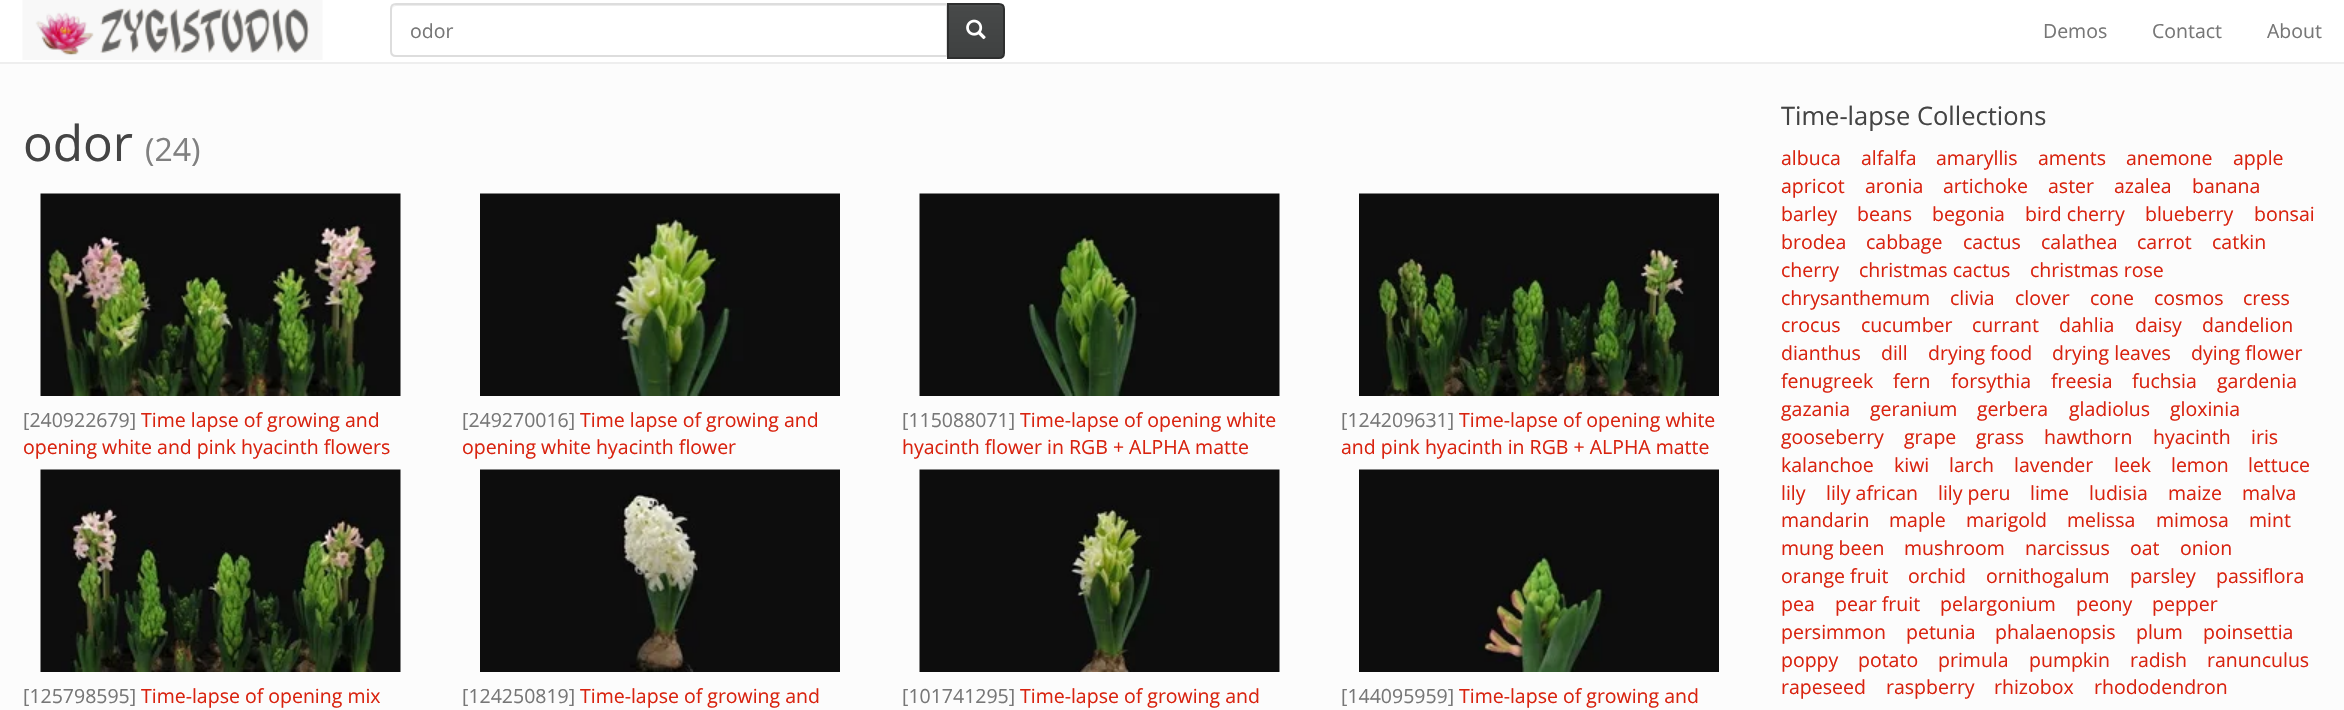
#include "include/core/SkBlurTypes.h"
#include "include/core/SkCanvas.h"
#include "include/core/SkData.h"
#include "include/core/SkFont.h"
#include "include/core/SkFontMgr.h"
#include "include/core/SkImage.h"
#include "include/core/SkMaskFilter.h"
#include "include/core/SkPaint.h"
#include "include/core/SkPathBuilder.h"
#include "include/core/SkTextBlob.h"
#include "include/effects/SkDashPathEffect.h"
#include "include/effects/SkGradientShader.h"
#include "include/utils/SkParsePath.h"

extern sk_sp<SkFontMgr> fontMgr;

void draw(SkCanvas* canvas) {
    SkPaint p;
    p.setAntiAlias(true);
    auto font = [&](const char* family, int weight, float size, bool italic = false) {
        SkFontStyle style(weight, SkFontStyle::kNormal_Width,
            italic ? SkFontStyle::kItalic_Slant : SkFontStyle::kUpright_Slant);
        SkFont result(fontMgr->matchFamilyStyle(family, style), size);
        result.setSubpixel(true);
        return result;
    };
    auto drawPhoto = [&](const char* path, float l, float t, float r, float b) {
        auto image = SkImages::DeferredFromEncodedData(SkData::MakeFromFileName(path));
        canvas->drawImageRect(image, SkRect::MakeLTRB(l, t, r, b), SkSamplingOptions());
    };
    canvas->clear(0xFFFCFCFC);
    p.setColor(0xFFFFFFFF);
    canvas->drawRect(SkRect::MakeLTRB(0, 0, 2344, 62), p);
    p.setColor(0xFFEEEEEE);
    canvas->drawRect(SkRect::MakeLTRB(0, 62, 2344, 64), p);
    drawPhoto("media/1.png", 22, 0, 323, 60);
    p.setColor(0xFFECECEC);
    canvas->drawPath(SkPathBuilder().moveTo(396, 6).lineTo(946, 6).lineTo(946, 56).lineTo(947, 56).lineTo(947, 5).lineTo(397, 5).cubicTo(394, 5, 392, 7, 392, 10).cubicTo(392, 8, 394, 6, 396, 6).close().detach(), p);
    p.setStyle(SkPaint::kStroke_Style);
    p.setStrokeWidth(2);
    p.setColor(0xFFDDDDDD);
    canvas->drawPath(SkPathBuilder().moveTo(396, 4).lineTo(947, 4).lineTo(947, 56).lineTo(396, 56).cubicTo(393, 56, 391, 54, 391, 51).lineTo(391, 9).cubicTo(391, 6, 393, 4, 396, 4).close().detach(), p);
    auto font1 = font("Open Sans", 400, 19.5f);
    p.setStyle(SkPaint::kFill_Style);
    p.setColor(0xFF777777);
    canvas->drawString("odor", 410, 38, font1, p);
    {
        const SkColor colors[] = {0xFF4F5151, 0xFF474949, 0xFF3F4141};
        const float stops[] = {0, 0.06f, 1};
        const SkPoint ends[] = {{976, 4.5f}, {976, 57}};
        p.setShader(SkGradientShader::MakeLinear(ends, colors, stops, 3, SkTileMode::kClamp));
        p.setAlpha(255);
    }
    canvas->drawRect(SkRect::MakeLTRB(949, 5, 1004, 57), p);
    p.setStyle(SkPaint::kStroke_Style);
    p.setShader(nullptr);
    p.setColor(0xFF2E2F2F);
    canvas->drawPath(SkPathBuilder().moveTo(948, 4).lineTo(999, 4).cubicTo(1002, 4, 1004, 6, 1004, 9).lineTo(1004, 53).cubicTo(1004, 56, 1002, 58, 999, 58).lineTo(948, 58).close().detach(), p);
    drawPhoto("media/2.png", 966, 19, 986, 40);
    p.setStyle(SkPaint::kFill_Style);
    p.setColor(0xFF777777);
    {
        const struct { const char* s; float x, y; } items[] = {
            {"Demos", 2043, 38},
            {"Contact", 2152, 38},
            {"About", 2267, 38},
        };
        for (auto [s, x, y] : items) {
            canvas->drawString(s, x, y, font1, p);
        }
    }
    auto font2 = font("Open Sans", 400, 49.5f);
    p.setColor(0xFF444444);
    canvas->drawString("odor", 23, 161, font2, p);
    auto font3 = font("Open Sans", 400, 32);
    p.setColor(0xFF808080);
    canvas->drawString("(24)", 145, 161, font3, p);
    drawPhoto("media/3.png", 40, 193, 401, 396);
    p.setColor(0xFF777777);
    canvas->drawString("[240922679]", 23, 427, font1, p);
    p.setColor(0xFFD9230F);
    canvas->drawString("Time lapse of growing and", 141, 427, font1, p);
    canvas->drawString("opening white and pink hyacinth flowers", 23, 454, font1, p);
    drawPhoto("media/4.png", 480, 193, 840, 396);
    p.setColor(0xFF777777);
    canvas->drawString("[249270016]", 462, 427, font1, p);
    p.setColor(0xFFD9230F);
    canvas->drawString("Time lapse of growing and", 580, 427, font1, p);
    canvas->drawString("opening white hyacinth flower", 462, 454, font1, p);
    drawPhoto("media/5.png", 919, 193, 1280, 396);
    p.setColor(0xFF777777);
    canvas->drawString("[115088071]", 902, 427, font1, p);
    p.setColor(0xFFD9230F);
    canvas->drawString("Time-lapse of opening white", 1020, 427, font1, p);
    canvas->drawString("hyacinth flower in RGB + ALPHA matte", 902, 454, font1, p);
    drawPhoto("media/6.png", 1359, 193, 1719, 396);
    p.setColor(0xFF777777);
    canvas->drawString("[124209631]", 1341, 427, font1, p);
    p.setColor(0xFFD9230F);
    canvas->drawString("Time-lapse of opening white", 1459, 427, font1, p);
    canvas->drawString("and pink hyacinth in RGB + ALPHA matte", 1341, 454, font1, p);
    drawPhoto("media/7.png", 40, 469, 401, 672);
    p.setColor(0xFF777777);
    canvas->drawString("[125798595]", 23, 703, font1, p);
    p.setColor(0xFFD9230F);
    canvas->drawString("Time-lapse of opening mix", 141, 703, font1, p);
    drawPhoto("media/8.png", 480, 469, 840, 672);
    p.setColor(0xFF777777);
    canvas->drawString("[124250819]", 462, 703, font1, p);
    p.setColor(0xFFD9230F);
    canvas->drawString("Time-lapse of growing and", 580, 703, font1, p);
    drawPhoto("media/9.png", 919, 469, 1280, 672);
    p.setColor(0xFF777777);
    canvas->drawString("[101741295]", 902, 703, font1, p);
    p.setColor(0xFFD9230F);
    canvas->drawString("Time-lapse of growing and", 1020, 703, font1, p);
    drawPhoto("media/10.png", 1359, 469, 1719, 672);
    p.setColor(0xFF777777);
    canvas->drawString("[144095959]", 1341, 703, font1, p);
    p.setColor(0xFFD9230F);
    canvas->drawString("Time-lapse of growing and", 1459, 703, font1, p);
    auto font4 = font("Open Sans", 400, 25.5f);
    p.setColor(0xFF444444);
    canvas->drawString("Time-lapse Collections", 1781, 125, font4, p);
    p.setColor(0xFFD9230F);
    {
        const struct { const char* s; float x, y; } items[] = {
            {"albuca", 1781, 165},
            {"alfalfa", 1861, 165},
            {"amaryllis", 1936, 165},
            {"aments", 2038, 165},
            {"anemone", 2126, 165},
            {"apple", 2233, 165},
            {"apricot", 1781, 193},
            {"aronia", 1865, 193},
            {"artichoke", 1943, 193},
            {"aster", 2048, 193},
            {"azalea", 2114, 193},
            {"banana", 2192, 193},
            {"barley", 1781, 221},
            {"beans", 1857, 221},
            {"begonia", 1932, 221},
            {"bird cherry", 2025, 221},
            {"blueberry", 2145, 221},
            {"bonsai", 2254, 221},
            {"brodea", 1781, 249},
            {"cabbage", 1866, 249},
            {"cactus", 1963, 249},
            {"calathea", 2041, 249},
            {"carrot", 2137, 249},
            {"catkin", 2212, 249},
            {"cherry", 1781, 277},
            {"christmas cactus", 1859, 277},
            {"christmas rose", 2030, 277},
            {"chrysanthemum", 1781, 305},
            {"clivia", 1950, 305},
            {"clover", 2015, 305},
            {"cone", 2090, 305},
            {"cosmos", 2154, 305},
            {"cress", 2243, 305},
            {"crocus", 1781, 332},
            {"cucumber", 1861, 332},
            {"currant", 1972, 332},
            {"dahlia", 2059, 332},
            {"daisy", 2135, 332},
            {"dandelion", 2202, 332},
            {"dianthus", 1781, 360},
            {"dill", 1881, 360},
            {"drying food", 1928, 360},
            {"drying leaves", 2052, 360},
            {"dying flower", 2191, 360},
            {"fenugreek", 1781, 388},
            {"fern", 1893, 388},
            {"forsythia", 1951, 388},
            {"freesia", 2051, 388},
            {"fuchsia", 2132, 388},
            {"gardenia", 2217, 388},
            {"gazania", 1781, 416},
            {"geranium", 1870, 416},
            {"gerbera", 1977, 416},
            {"gladiolus", 2069, 416},
            {"gloxinia", 2170, 416},
            {"gooseberry", 1781, 444},
            {"grape", 1904, 444},
            {"grass", 1976, 444},
            {"hawthorn", 2044, 444},
            {"hyacinth", 2153, 444},
            {"iris", 2251, 444},
            {"kalanchoe", 1781, 472},
            {"kiwi", 1894, 472},
            {"larch", 1949, 472},
            {"lavender", 2014, 472},
            {"leek", 2114, 472},
            {"lemon", 2171, 472},
            {"lettuce", 2248, 472},
            {"lily", 1781, 500},
            {"lily african", 1826, 500},
            {"lily peru", 1938, 500},
            {"lime", 2030, 500},
            {"ludisia", 2089, 500},
            {"maize", 2168, 500},
            {"malva", 2242, 500},
            {"mandarin", 1781, 527},
            {"maple", 1889, 527},
            {"marigold", 1966, 527},
            {"melissa", 2067, 527},
            {"mimosa", 2156, 527},
            {"mint", 2249, 527},
            {"mung been", 1781, 555},
            {"mushroom", 1904, 555},
            {"narcissus", 2025, 555},
            {"oat", 2130, 555},
            {"onion", 2180, 555},
            {"orange fruit", 1781, 583},
            {"orchid", 1908, 583},
            {"ornithogalum", 1986, 583},
            {"parsley", 2130, 583},
            {"passiflora", 2216, 583},
            {"pea", 1781, 611},
            {"pear fruit", 1835, 611},
            {"pelargonium", 1940, 611},
            {"peony", 2076, 611},
            {"pepper", 2152, 611},
            {"persimmon", 1781, 639},
            {"petunia", 1906, 639},
            {"phalaenopsis", 1995, 639},
            {"plum", 2136, 639},
            {"poinsettia", 2203, 639},
            {"poppy", 1781, 667},
            {"potato", 1858, 667},
            {"primula", 1938, 667},
            {"pumpkin", 2029, 667},
            {"radish", 2130, 667},
            {"ranunculus", 2207, 667},
            {"rapeseed", 1781, 694},
            {"raspberry", 1886, 694},
            {"rhizobox", 1994, 694},
            {"rhododendron", 2094, 694},
        };
        for (auto [s, x, y] : items) {
            canvas->drawString(s, x, y, font1, p);
        }
    }
}
